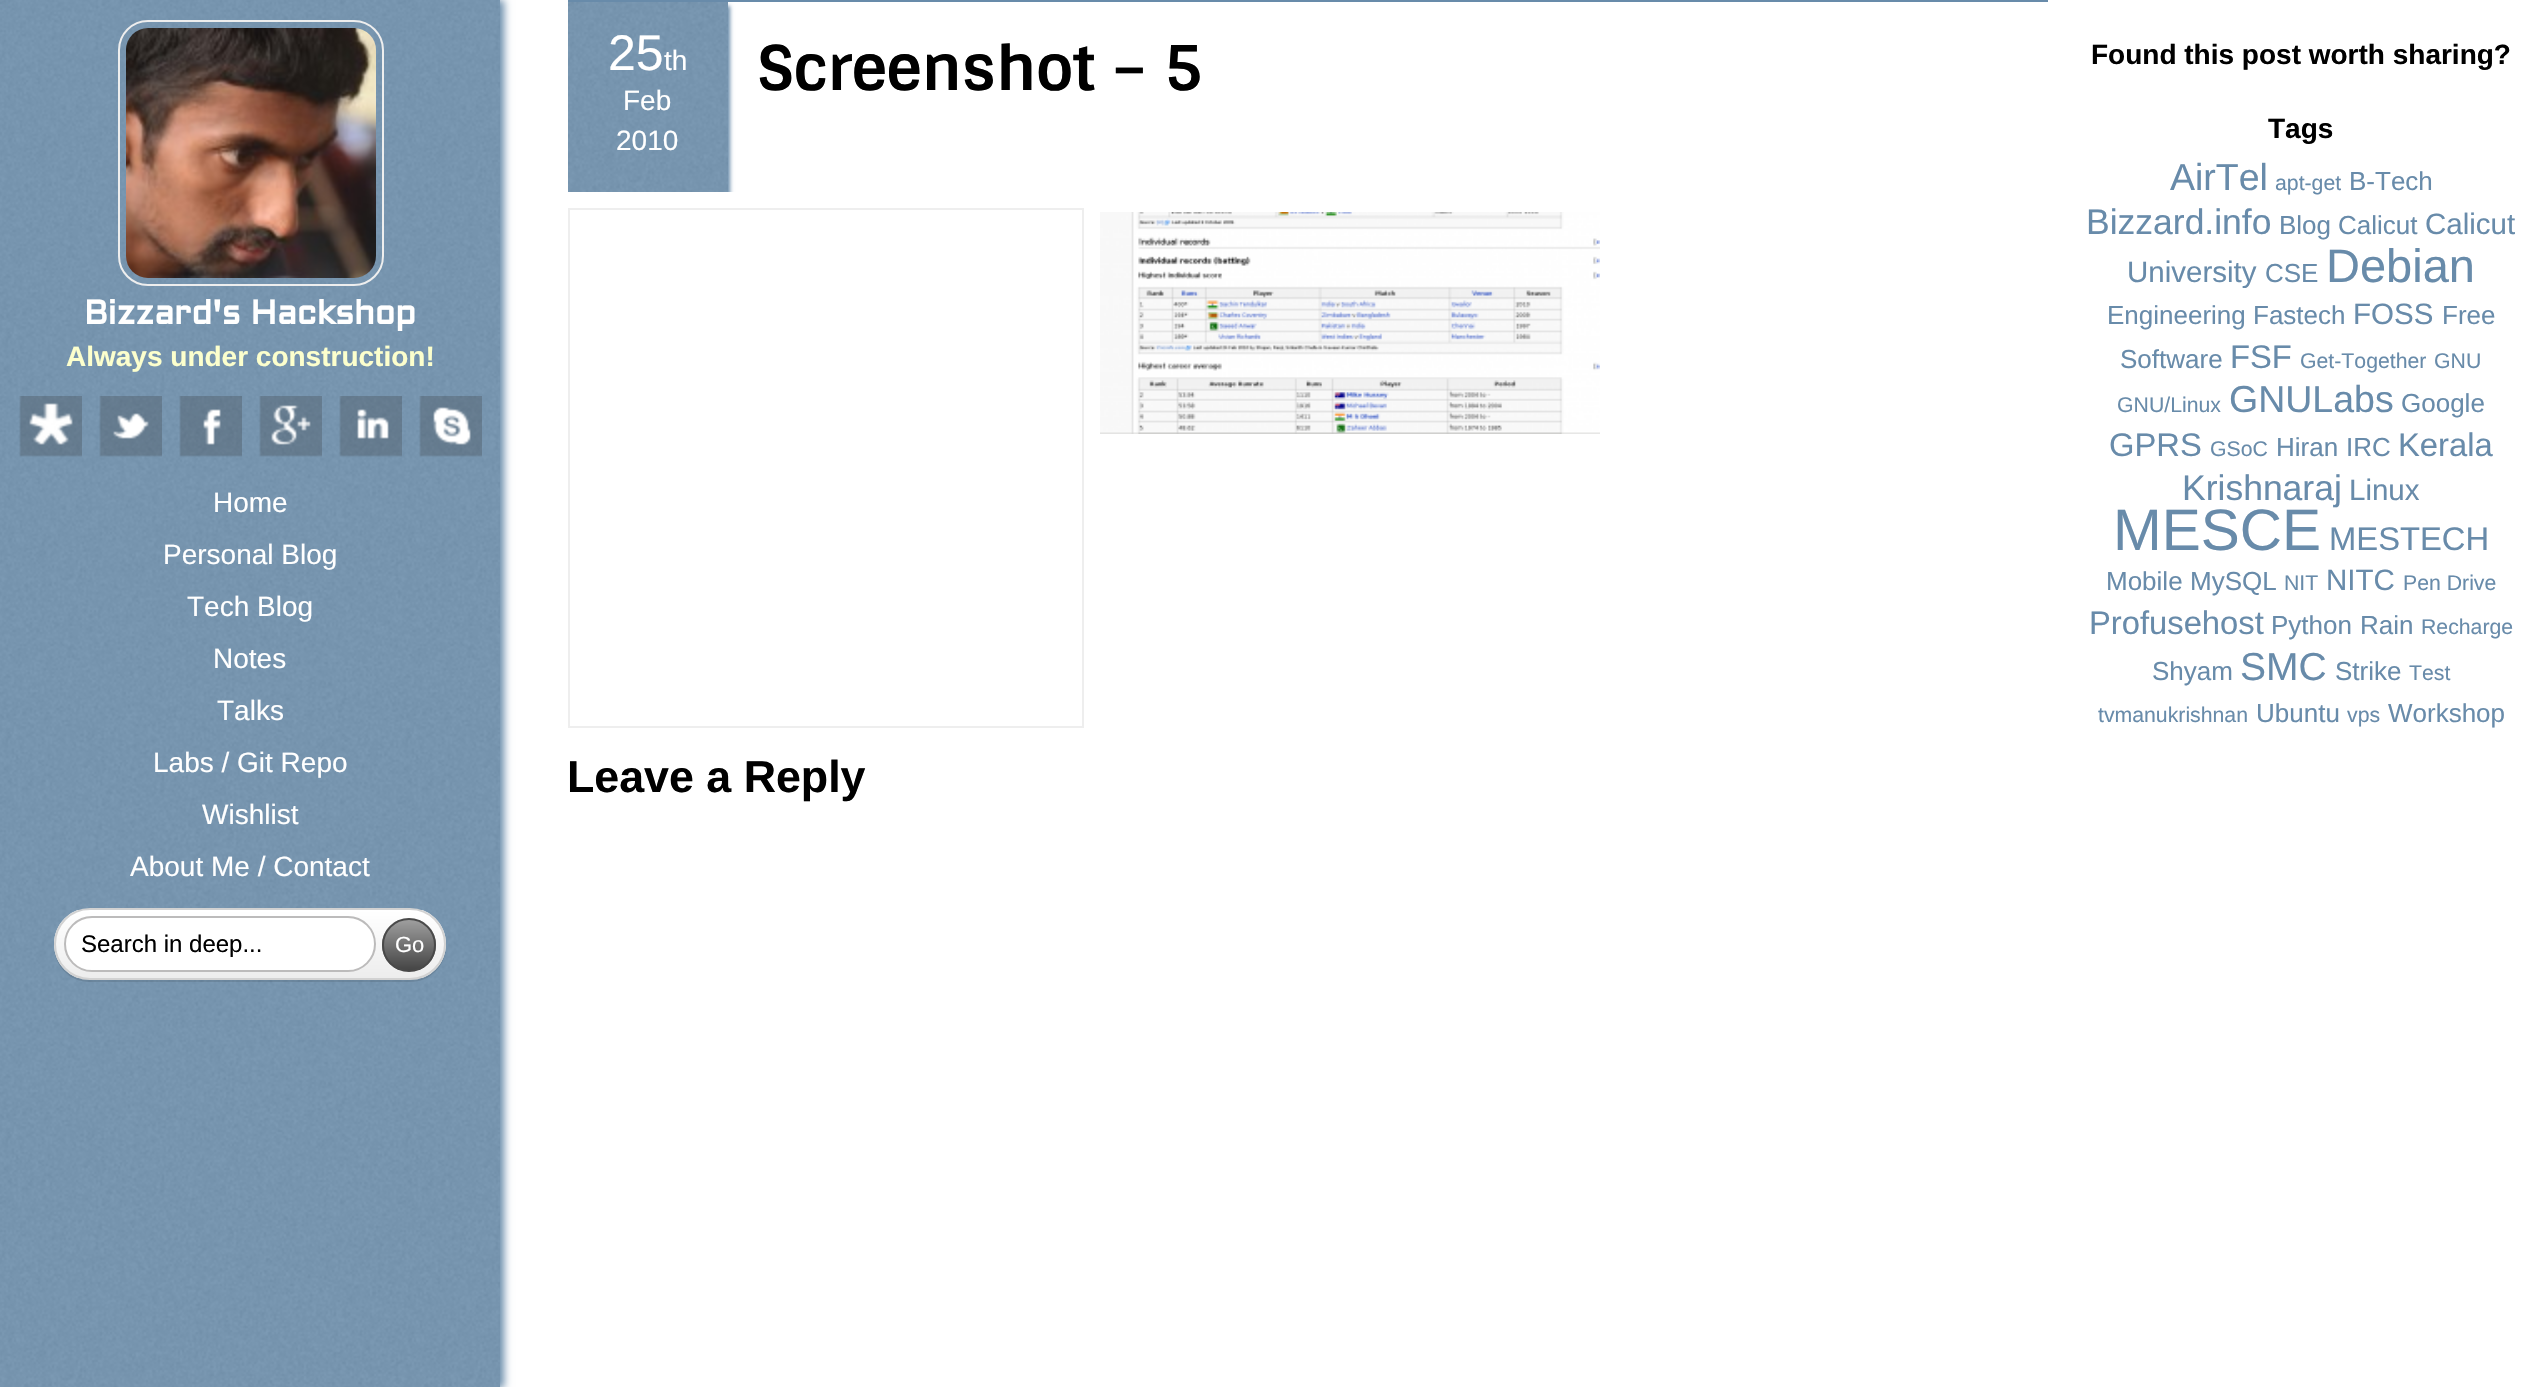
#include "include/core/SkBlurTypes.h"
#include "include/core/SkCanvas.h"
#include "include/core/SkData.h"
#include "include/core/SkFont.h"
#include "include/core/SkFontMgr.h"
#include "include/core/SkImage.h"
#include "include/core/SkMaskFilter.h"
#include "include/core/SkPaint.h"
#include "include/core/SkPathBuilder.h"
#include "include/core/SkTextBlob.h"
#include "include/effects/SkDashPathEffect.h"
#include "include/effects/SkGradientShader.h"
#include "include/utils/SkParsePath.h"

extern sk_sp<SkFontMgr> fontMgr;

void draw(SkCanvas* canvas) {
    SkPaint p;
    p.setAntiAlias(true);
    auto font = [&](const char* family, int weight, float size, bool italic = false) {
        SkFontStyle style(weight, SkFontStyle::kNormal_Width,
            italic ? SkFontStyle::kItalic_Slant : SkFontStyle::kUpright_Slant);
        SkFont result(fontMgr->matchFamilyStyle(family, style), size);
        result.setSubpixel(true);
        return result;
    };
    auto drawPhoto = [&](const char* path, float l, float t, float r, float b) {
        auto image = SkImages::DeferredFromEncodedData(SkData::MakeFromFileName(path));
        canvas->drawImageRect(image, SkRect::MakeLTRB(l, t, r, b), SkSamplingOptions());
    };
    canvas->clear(0xFFFFFFFF);
    p.setColor(0xFF688BAA);
    p.setMaskFilter(SkMaskFilter::MakeBlur(kNormal_SkBlurStyle, 4));
    canvas->drawRect(SkRect::MakeLTRB(4, 0, 504, 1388), p);
    p.setMaskFilter(nullptr);
    canvas->drawRect(SkRect::MakeLTRB(0, 0, 500, 1387), p);
    drawPhoto("media/1.png", 0, 0, 500, 1387);
    p.setStyle(SkPaint::kStroke_Style);
    p.setStrokeWidth(2);
    p.setColor(0xFFEEEEEE);
    canvas->drawRoundRect(SkRect::MakeLTRB(119, 21, 383, 285), 29, 29, p);
    drawPhoto("media/2.png", 126, 28, 376, 278);
    auto font1 = font("Aldrich", 700, 33.5f);
    p.setStyle(SkPaint::kFill_Style);
    p.setColor(0xFFFFFFFF);
    canvas->drawString("Bizzard's Hackshop", 84, 324, font1, p);
    auto font2 = font("Liberation Sans", 700, 28);
    p.setColor(0xFFFCFFCD);
    canvas->drawString("Always under construction!", 66, 366, font2, p);
    drawPhoto("media/3.png", 19, 396, 82, 457);
    drawPhoto("media/4.png", 99, 396, 162, 457);
    drawPhoto("media/5.png", 179, 396, 242, 457);
    drawPhoto("media/6.png", 259, 396, 322, 457);
    drawPhoto("media/7.png", 339, 396, 402, 457);
    drawPhoto("media/8.png", 419, 396, 482, 457);
    auto font3 = font("Liberation Sans", 400, 28);
    p.setColor(0xFFFFFFFF);
    {
        const struct { const char* s; float x, y; } items[] = {
            {"Home", 213, 512},
            {"Personal Blog", 163, 564},
            {"Tech Blog", 187, 616},
            {"Notes", 213, 668},
            {"Talks", 217, 720},
            {"Labs / Git Repo", 153, 772},
            {"Wishlist", 202, 824},
            {"About Me / Contact", 130, 876},
        };
        for (auto [s, x, y] : items) {
            canvas->drawString(s, x, y, font3, p);
        }
    }
    p.setColor(0x1A000000);
    canvas->drawPath(SkPathBuilder().moveTo(54, 945).lineTo(54, 946).cubicTo(54, 966, 70, 982, 90, 982).lineTo(410, 982).cubicTo(430, 982, 446, 966, 446, 946).lineTo(446, 945).cubicTo(445, 964, 430, 980, 410, 980).lineTo(90, 980).cubicTo(70, 980, 55, 964, 54, 945).close().detach(), p);
    canvas->save();
    canvas->clipPath(SkPathBuilder().moveTo(90, 908).lineTo(410, 908).cubicTo(430, 908, 446, 924, 446, 944).cubicTo(446, 964, 430, 980, 410, 980).lineTo(90, 980).cubicTo(70, 980, 54, 964, 54, 944).cubicTo(54, 924, 70, 908, 90, 908).close().detach(), true);
    {
        const SkColor colors[] = {0xFFFFFFFF, 0xFFEDEDED};
        const float stops[] = {0, 1};
        const SkPoint ends[] = {{56, 910}, {56, 978}};
        p.setShader(SkGradientShader::MakeLinear(ends, colors, stops, 2, SkTileMode::kClamp));
        p.setAlpha(255);
    }
    canvas->drawRect(SkRect::MakeLTRB(54, 910, 446, 978), p);
    canvas->restore();
    p.setStyle(SkPaint::kStroke_Style);
    p.setShader(nullptr);
    p.setColor(0xFFD2D2D2);
    canvas->drawRoundRect(SkRect::MakeLTRB(55, 909, 445, 979), 35, 35, p);
    p.setStyle(SkPaint::kFill_Style);
    p.setColor(0xFFFFFFFF);
    canvas->drawRoundRect(SkRect::MakeLTRB(65, 917, 375, 971), 27, 27, p);
    p.setStyle(SkPaint::kStroke_Style);
    p.setColor(0xFFBCBBBB);
    canvas->drawRoundRect(SkRect::MakeLTRB(65, 917, 375, 971), 27, 27, p);
    auto font4 = font("Liberation Sans", 400, 24);
    p.setStyle(SkPaint::kFill_Style);
    p.setColor(0xFF000000);
    canvas->drawString("Search in deep...", 81, 952, font4, p);
    canvas->save();
    canvas->clipPath(SkPathBuilder().moveTo(409, 918).cubicTo(424, 918, 436, 930, 436, 945).cubicTo(436, 960, 424, 972, 409, 972).cubicTo(394, 972, 382, 960, 382, 945).cubicTo(382, 930, 394, 918, 409, 918).close().detach(), true);
    {
        const SkColor colors[] = {0xFF9E9E9E, 0xFF454545};
        const float stops[] = {0, 1};
        const SkPoint ends[] = {{384, 920}, {384, 970}};
        p.setShader(SkGradientShader::MakeLinear(ends, colors, stops, 2, SkTileMode::kClamp));
        p.setAlpha(255);
    }
    canvas->drawRect(SkRect::MakeLTRB(382, 920, 436, 970), p);
    canvas->restore();
    p.setStyle(SkPaint::kStroke_Style);
    p.setShader(nullptr);
    p.setColor(0xFF494949);
    canvas->drawCircle(409, 945, 26, p);
    auto font5 = font("Liberation Sans", 400, 22);
    p.setStyle(SkPaint::kFill_Style);
    p.setColor(0xFFFFFFFF);
    canvas->drawString("Go", 395, 952, font5, p);
    p.setColor(0xFF688BAA);
    canvas->drawRect(SkRect::MakeLTRB(568, 0, 2048, 2), p);
    canvas->save();
    canvas->clipRect(SkRect::MakeLTRB(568, 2, 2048, 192));
    p.setMaskFilter(SkMaskFilter::MakeBlur(kNormal_SkBlurStyle, 2));
    canvas->drawRect(SkRect::MakeLTRB(570, 6, 730, 196), p);
    p.setMaskFilter(nullptr);
    canvas->restore();
    canvas->drawRect(SkRect::MakeLTRB(568, 2, 728, 192), p);
    drawPhoto("media/9.png", 568, 2, 728, 192);
    auto font6 = font("Liberation Sans", 400, 50);
    p.setColor(0xFFFFFFFF);
    canvas->drawString("25", 608, 70, font6, p);
    {
        const struct { const char* s; float x, y; } items[] = {
            {"th", 664, 70},
            {"Feb", 623, 110},
            {"2010", 616, 150},
        };
        for (auto [s, x, y] : items) {
            canvas->drawString(s, x, y, font3, p);
        }
    }
    auto font7 = font("Sintony", 700, 61.5f);
    p.setColor(0xFF000000);
    canvas->drawString("Screenshot – 5", 757, 90, font7, p);
    p.setStyle(SkPaint::kStroke_Style);
    p.setColor(0xFFEEEEEE);
    canvas->drawRect(SkRect::MakeLTRB(569, 209, 1083, 727), p);
    drawPhoto("media/10.png", 1100, 212, 1600, 434);
    auto font8 = font("Liberation Sans", 700, 44.75f);
    p.setStyle(SkPaint::kFill_Style);
    p.setColor(0xFF000000);
    canvas->drawString("Leave a Reply", 567, 792, font8, p);
    canvas->drawString("Found this post worth sharing?", 2091, 64, font2, p);
    canvas->drawString("Tags", 2268, 138, font2, p);
    auto font9 = font("Liberation Sans", 400, 37.5f);
    p.setColor(0xFF688BAA);
    canvas->drawString("AirTel", 2170, 190, font9, p);
    auto font10 = font("Liberation Sans", 400, 21.25f);
    canvas->drawString("apt-get", 2275, 190, font10, p);
    auto font11 = font("Liberation Sans", 400, 26);
    canvas->drawString("B-Tech", 2349, 190, font11, p);
    auto font12 = font("Liberation Sans", 400, 35.5f);
    canvas->drawString("Bizzard.info", 2086, 234, font12, p);
    canvas->drawString("Blog", 2279, 234, font11, p);
    canvas->drawString("Calicut", 2338, 234, font11, p);
    auto font13 = font("Liberation Sans", 400, 29.5f);
    canvas->drawString("Calicut", 2425, 234, font13, p);
    canvas->drawString("University", 2127, 282, font13, p);
    canvas->drawString("CSE", 2265, 282, font11, p);
    auto font14 = font("Liberation Sans", 400, 47);
    canvas->drawString("Debian", 2326, 282, font14, p);
    canvas->drawString("Engineering", 2107, 324, font11, p);
    canvas->drawString("Fastech", 2253, 324, font11, p);
    canvas->drawString("FOSS", 2353, 324, font13, p);
    canvas->drawString("Free", 2442, 324, font11, p);
    canvas->drawString("Software", 2120, 368, font11, p);
    auto font15 = font("Liberation Sans", 400, 32.75f);
    canvas->drawString("FSF", 2230, 368, font15, p);
    {
        const struct { const char* s; float x, y; } items[] = {
            {"Get-Together", 2300, 368},
            {"GNU", 2434, 368},
            {"GNU/Linux", 2117, 412},
        };
        for (auto [s, x, y] : items) {
            canvas->drawString(s, x, y, font10, p);
        }
    }
    canvas->drawString("GNULabs", 2229, 412, font9, p);
    canvas->drawString("Google", 2401, 412, font11, p);
    canvas->drawString("GPRS", 2109, 456, font15, p);
    canvas->drawString("GSoC", 2210, 456, font10, p);
    canvas->drawString("Hiran", 2276, 456, font11, p);
    canvas->drawString("IRC", 2346, 456, font11, p);
    canvas->drawString("Kerala", 2398, 456, font15, p);
    canvas->drawString("Krishnaraj", 2182, 500, font12, p);
    canvas->drawString("Linux", 2349, 500, font13, p);
    auto font16 = font("Liberation Sans", 400, 58.5f);
    canvas->drawString("MESCE", 2113, 550, font16, p);
    canvas->drawString("MESTECH", 2329, 550, font15, p);
    canvas->drawString("Mobile", 2106, 590, font11, p);
    canvas->drawString("MySQL", 2190, 590, font11, p);
    canvas->drawString("NIT", 2284, 590, font10, p);
    canvas->drawString("NITC", 2326, 590, font13, p);
    canvas->drawString("Pen Drive", 2403, 590, font10, p);
    canvas->drawString("Profusehost", 2089, 634, font15, p);
    canvas->drawString("Python", 2271, 634, font11, p);
    canvas->drawString("Rain", 2360, 634, font11, p);
    canvas->drawString("Recharge", 2421, 634, font10, p);
    canvas->drawString("Shyam", 2152, 680, font11, p);
    auto font17 = font("Liberation Sans", 400, 39);
    canvas->drawString("SMC", 2240, 680, font17, p);
    canvas->drawString("Strike", 2335, 680, font11, p);
    canvas->drawString("Test", 2409, 680, font10, p);
    canvas->drawString("tvmanukrishnan", 2098, 722, font10, p);
    canvas->drawString("Ubuntu", 2256, 722, font11, p);
    canvas->drawString("vps", 2347, 722, font10, p);
    canvas->drawString("Workshop", 2388, 722, font11, p);
}
